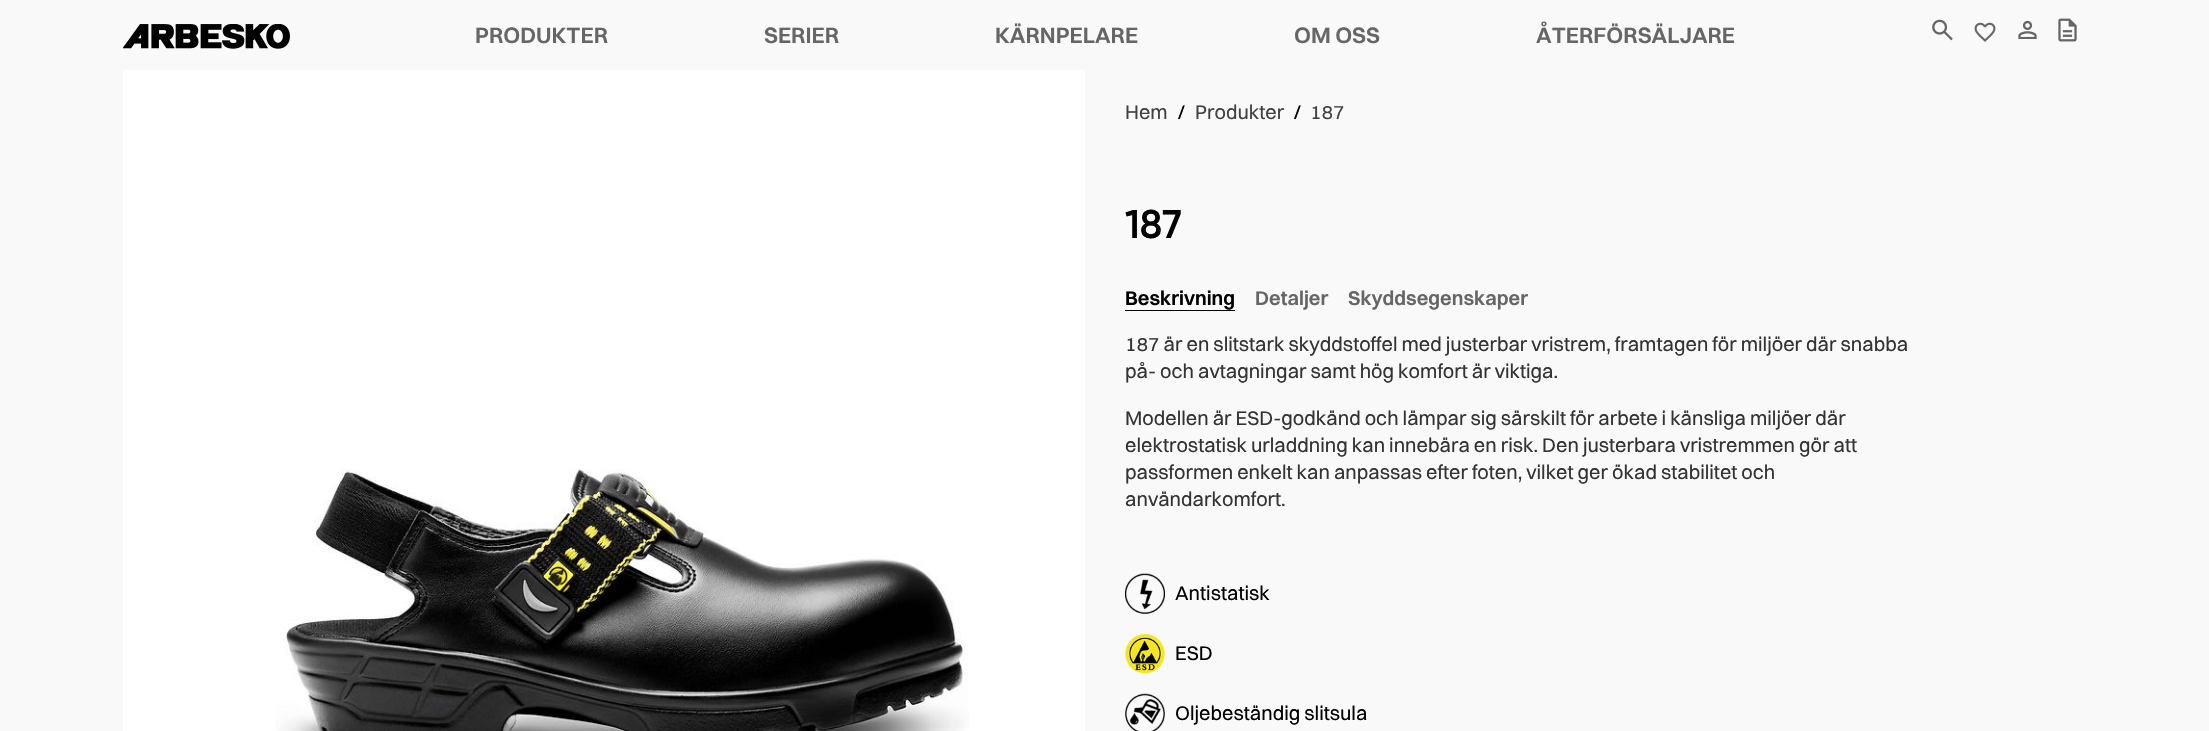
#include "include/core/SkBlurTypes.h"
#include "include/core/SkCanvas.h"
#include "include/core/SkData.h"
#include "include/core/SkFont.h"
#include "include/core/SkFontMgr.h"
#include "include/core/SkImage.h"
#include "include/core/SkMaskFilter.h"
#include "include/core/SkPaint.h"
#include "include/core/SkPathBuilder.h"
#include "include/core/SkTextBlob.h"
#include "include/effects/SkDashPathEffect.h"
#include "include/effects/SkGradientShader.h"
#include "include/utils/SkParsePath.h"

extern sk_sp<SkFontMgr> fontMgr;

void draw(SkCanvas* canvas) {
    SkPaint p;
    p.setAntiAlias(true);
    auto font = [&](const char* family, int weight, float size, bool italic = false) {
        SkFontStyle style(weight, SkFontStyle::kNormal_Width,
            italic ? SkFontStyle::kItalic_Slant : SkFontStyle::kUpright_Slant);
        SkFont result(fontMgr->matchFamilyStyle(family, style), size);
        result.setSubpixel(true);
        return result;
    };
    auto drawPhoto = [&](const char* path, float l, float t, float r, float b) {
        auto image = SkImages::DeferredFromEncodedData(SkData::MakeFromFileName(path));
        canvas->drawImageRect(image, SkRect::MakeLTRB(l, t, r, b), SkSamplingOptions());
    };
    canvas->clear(0xFFF9F9F9);
    drawPhoto("media/1.png", 123, 24, 290, 49);
    auto font1 = font("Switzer", 600, 22.5f);
    p.setColor(0xFF666666);
    {
        const struct { const char* s; float x, y; } items[] = {
            {"PRODUKTER", 475, 43},
            {"SERIER", 764, 43},
            {"KÄRNPELARE", 995, 43},
            {"OM OSS", 1294, 43},
            {"ÅTERFÖRSÄLJARE", 1536, 43},
        };
        for (auto [s, x, y] : items) {
            canvas->drawString(s, x, y, font1, p);
        }
    }
    drawPhoto("media/2.png", 1932, 19, 1953, 41);
    drawPhoto("media/3.png", 1974, 22, 1996, 42);
    drawPhoto("media/4.png", 2018, 20, 2037, 39);
    drawPhoto("media/5.png", 2058, 18, 2077, 42);
    p.setColor(0xFFFFFFFF);
    canvas->drawRect(SkRect::MakeLTRB(123, 70, 1085, 731), p);
    drawPhoto("media/6.png", 276, 469, 969, 731);
    auto font2 = font("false", 400, 20);
    p.setColor(0xFF414141);
    canvas->drawString("Hem", 1125, 119, font2, p);
    p.setColor(0xFF000000);
    canvas->drawString("/", 1178, 119, font2, p);
    p.setColor(0xFF414141);
    canvas->drawString("Produkter", 1195, 119, font2, p);
    p.setColor(0xFF000000);
    canvas->drawString("/", 1294, 119, font2, p);
    p.setColor(0xFF414141);
    canvas->drawString("187", 1310, 119, font2, p);
    auto font3 = font("Gilroy", 600, 40);
    p.setColor(0xFF000000);
    canvas->drawString("187", 1125, 238, font3, p);
    canvas->drawRect(SkRect::MakeLTRB(1125, 310, 1235, 311), p);
    auto font4 = font("Switzer", 600, 20);
    canvas->drawString("Beskrivning", 1125, 305, font4, p);
    p.setColor(0xFF666666);
    canvas->drawString("Detaljer", 1255, 305, font4, p);
    canvas->drawString("Skyddsegenskaper", 1348, 305, font4, p);
    p.setColor(0xFF333333);
    {
        const struct { const char* s; float x, y; } items[] = {
            {"187 är en slitstark skyddstoffel med justerbar vristrem, framtagen för miljöer där snabba", 1125, 351},
            {"på- och avtagningar samt hög komfort är viktiga.", 1125, 378},
            {"Modellen är ESD-godkänd och lämpar sig särskilt för arbete i känsliga miljöer där", 1125, 425},
            {"elektrostatisk urladdning kan innebära en risk. Den justerbara vristremmen gör att", 1125, 452},
            {"passformen enkelt kan anpassas efter foten, vilket ger ökad stabilitet och", 1125, 479},
            {"användarkomfort.", 1125, 506},
        };
        for (auto [s, x, y] : items) {
            canvas->drawString(s, x, y, font2, p);
        }
    }
    drawPhoto("media/7.png", 1125, 573, 1165, 614);
    p.setColor(0xFF000000);
    canvas->drawString("Antistatisk", 1175, 600, font2, p);
    drawPhoto("media/8.png", 1125, 633, 1165, 674);
    canvas->drawString("ESD", 1175, 660, font2, p);
    drawPhoto("media/9.png", 1125, 693, 1165, 731);
    canvas->drawString("Oljebeständig slitsula", 1175, 720, font2, p);
}
